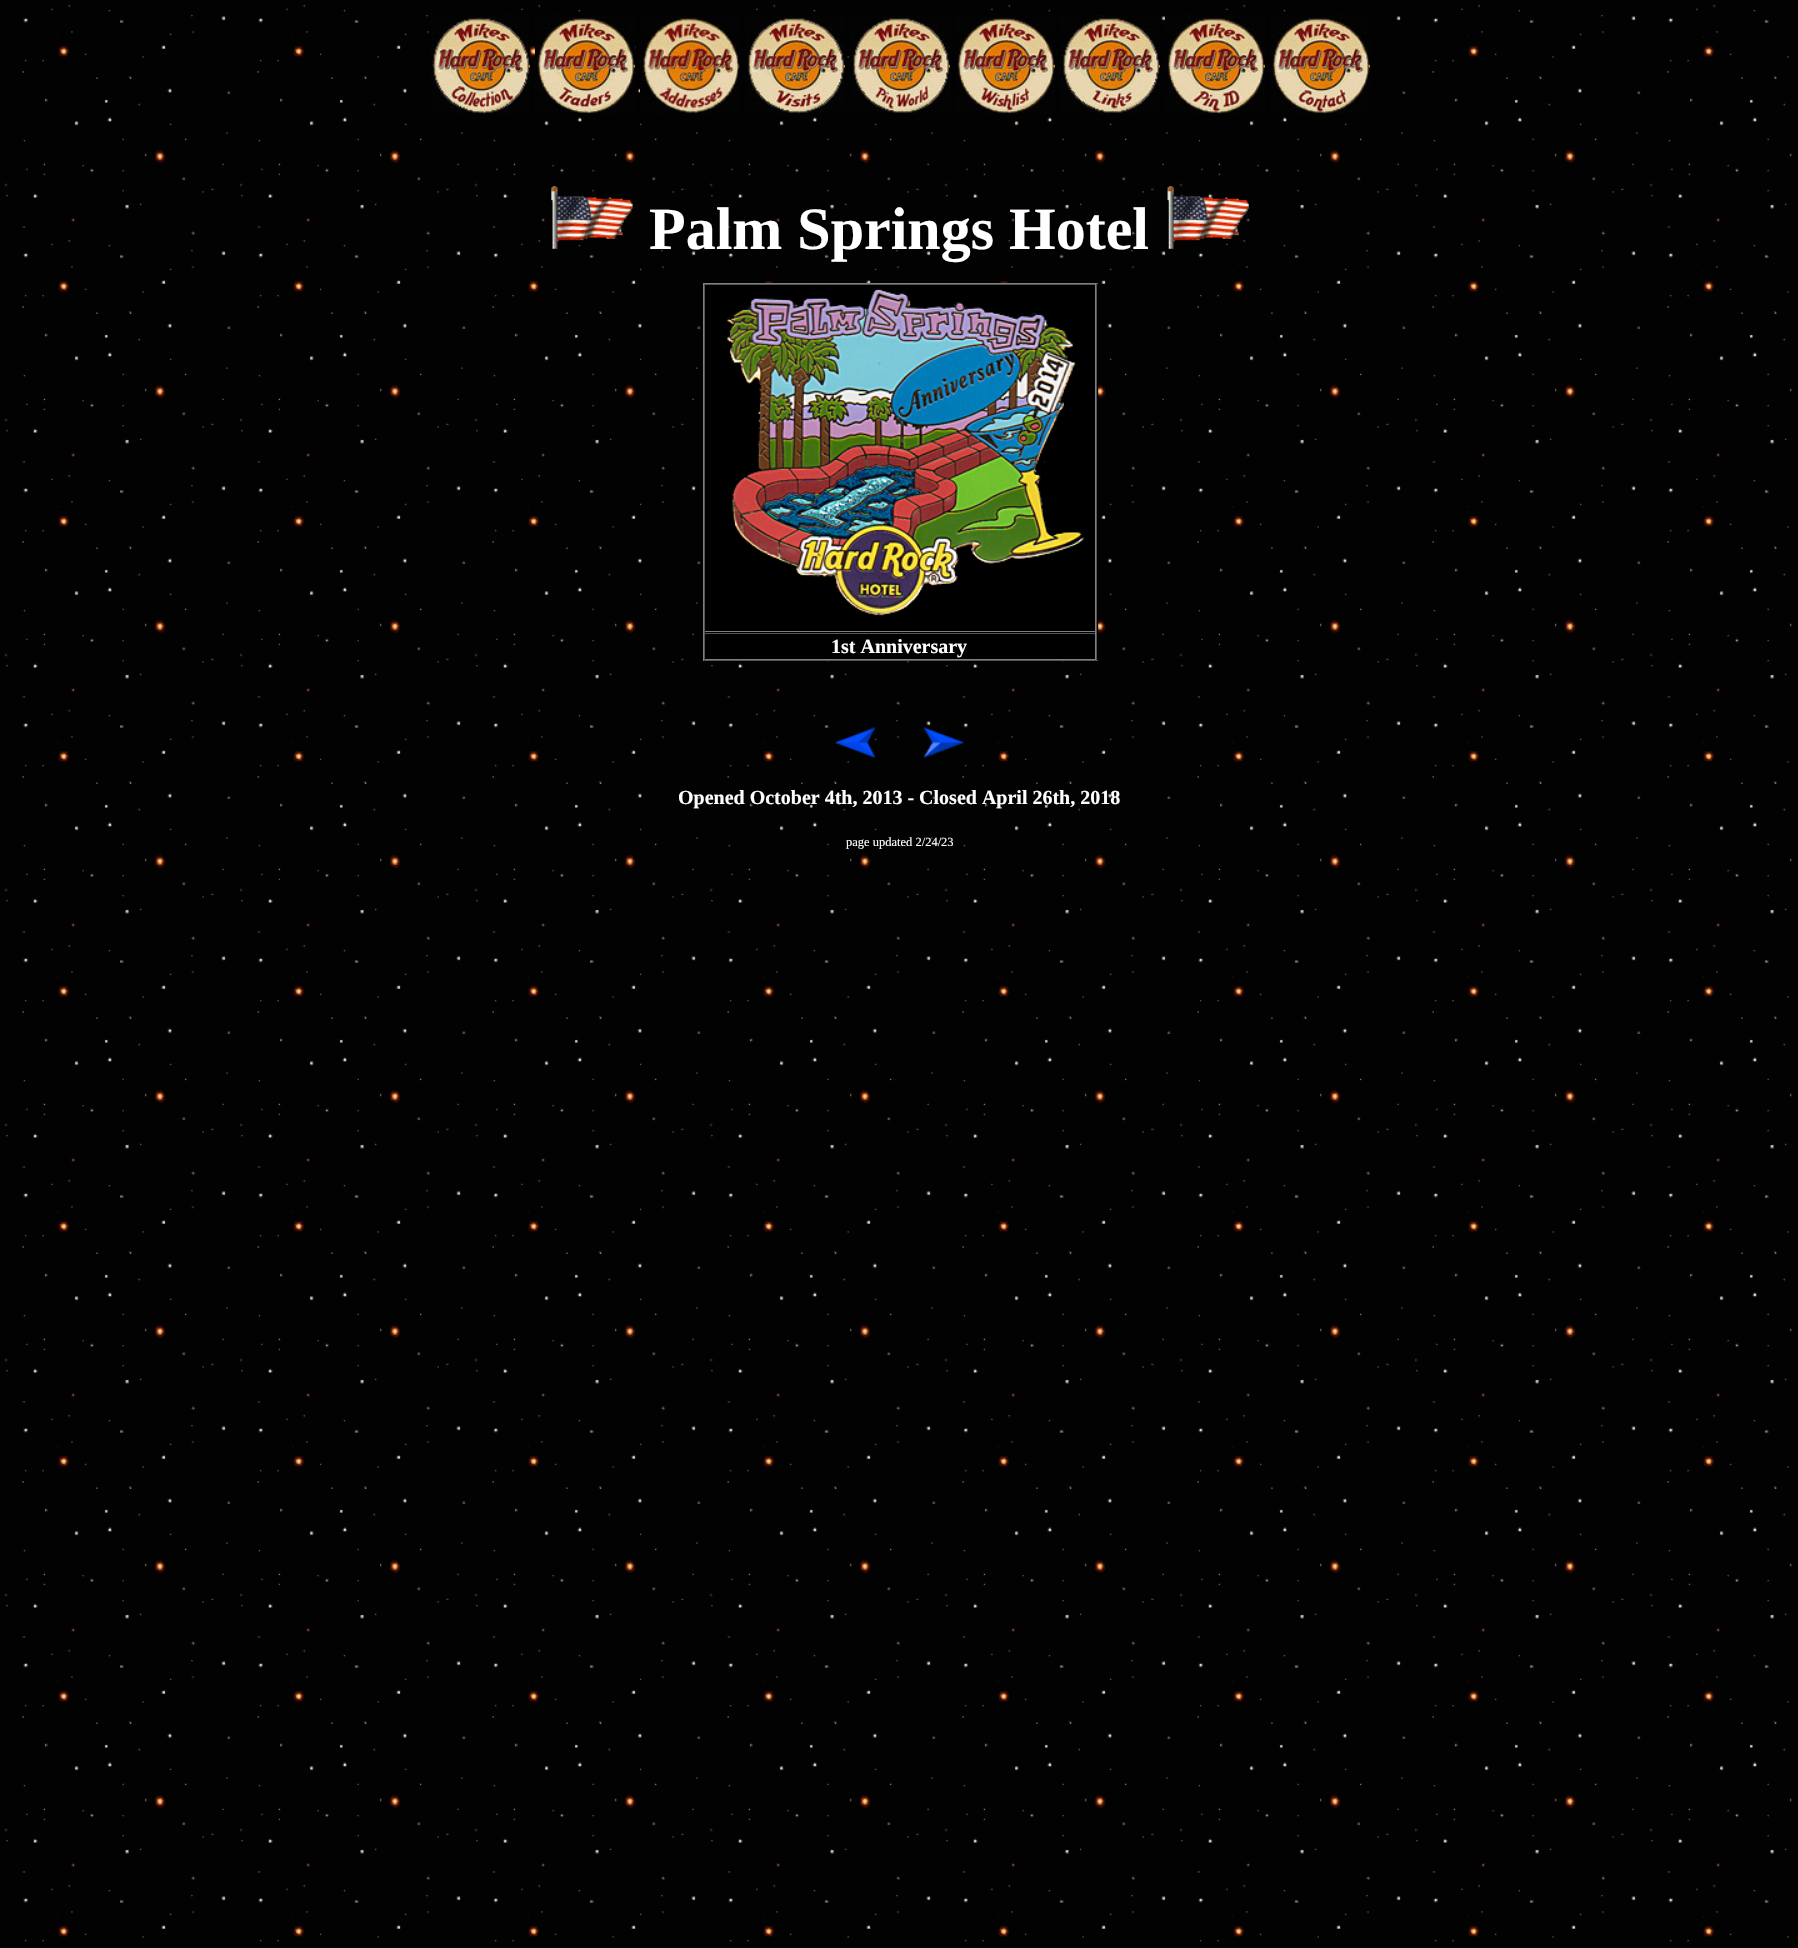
#include "include/core/SkBlurTypes.h"
#include "include/core/SkCanvas.h"
#include "include/core/SkData.h"
#include "include/core/SkFont.h"
#include "include/core/SkFontMgr.h"
#include "include/core/SkImage.h"
#include "include/core/SkMaskFilter.h"
#include "include/core/SkPaint.h"
#include "include/core/SkPathBuilder.h"
#include "include/core/SkTextBlob.h"
#include "include/effects/SkDashPathEffect.h"
#include "include/effects/SkGradientShader.h"
#include "include/utils/SkParsePath.h"

extern sk_sp<SkFontMgr> fontMgr;

void draw(SkCanvas* canvas) {
    SkPaint p;
    p.setAntiAlias(true);
    auto font = [&](const char* family, int weight, float size, bool italic = false) {
        SkFontStyle style(weight, SkFontStyle::kNormal_Width,
            italic ? SkFontStyle::kItalic_Slant : SkFontStyle::kUpright_Slant);
        SkFont result(fontMgr->matchFamilyStyle(family, style), size);
        result.setSubpixel(true);
        return result;
    };
    auto drawPhoto = [&](const char* path, float l, float t, float r, float b) {
        auto image = SkImages::DeferredFromEncodedData(SkData::MakeFromFileName(path));
        canvas->drawImageRect(image, SkRect::MakeLTRB(l, t, r, b), SkSamplingOptions());
    };
    canvas->clear(0xFFFFFFFF);
    drawPhoto("media/1.png", 0, 0, 1798, 1948);
    drawPhoto("media/2.png", 430, 14, 530, 114);
    drawPhoto("media/3.png", 535, 14, 635, 114);
    drawPhoto("media/4.png", 640, 14, 740, 114);
    drawPhoto("media/5.png", 745, 14, 845, 114);
    drawPhoto("media/6.png", 850, 14, 950, 114);
    drawPhoto("media/7.png", 955, 14, 1055, 114);
    drawPhoto("media/8.png", 1060, 14, 1160, 114);
    drawPhoto("media/9.png", 1165, 14, 1265, 114);
    drawPhoto("media/10.png", 1270, 14, 1370, 114);
    drawPhoto("media/11.png", 551, 186, 633, 249);
    auto font1 = font("Liberation Serif", 700, 60);
    p.setColor(0xFFFFFFFF);
    canvas->drawString("Palm Springs Hotel", 649, 249, font1, p);
    drawPhoto("media/12.png", 1167, 186, 1249, 249);
    {
        const struct { float l, t, r, b; SkColor color; } items[] = {
            {709, 284, 1098, 660, 0xFF000000},
            {703, 283, 1098, 284, 0xFF808080},
            {1096, 283, 1097, 661, 0xFF555555},
            {703, 660, 1098, 661, 0xFF555555},
            {703, 283, 704, 661, 0xFF808080},
            {704, 284, 1096, 285, 0xFF555555},
            {1095, 284, 1096, 633, 0xFF808080},
            {704, 631, 1096, 632, 0xFF808080},
            {704, 284, 705, 633, 0xFF555555},
        };
        for (auto [l, t, r, b, color] : items) {
            p.setColor(color);
            canvas->drawRect(SkRect::MakeLTRB(l, t, r, b), p);
        }
    }
    drawPhoto("media/13.png", 727, 288, 1084, 616);
    {
        const struct { float l, t, r, b; SkColor color; } items[] = {
            {704, 633, 1096, 634, 0xFF555555},
            {1095, 633, 1096, 660, 0xFF808080},
            {704, 659, 1096, 660, 0xFF808080},
            {704, 633, 705, 660, 0xFF555555},
        };
        for (auto [l, t, r, b, color] : items) {
            p.setColor(color);
            canvas->drawRect(SkRect::MakeLTRB(l, t, r, b), p);
        }
    }
    auto font2 = font("Liberation Serif", 700, 20);
    p.setColor(0xFFFFFFFF);
    canvas->drawString("1st Anniversary", 831, 653, font2, p);
    drawPhoto("media/14.png", 835, 727, 875, 758);
    drawPhoto("media/15.png", 923, 727, 964, 758);
    canvas->drawString("Opened October 4th, 2013 - Closed April 26th, 2018", 678, 804, font2, p);
    auto font3 = font("Liberation Serif", 400, 12.5f);
    canvas->drawString("page updated 2/24/23", 846, 846, font3, p);
}
